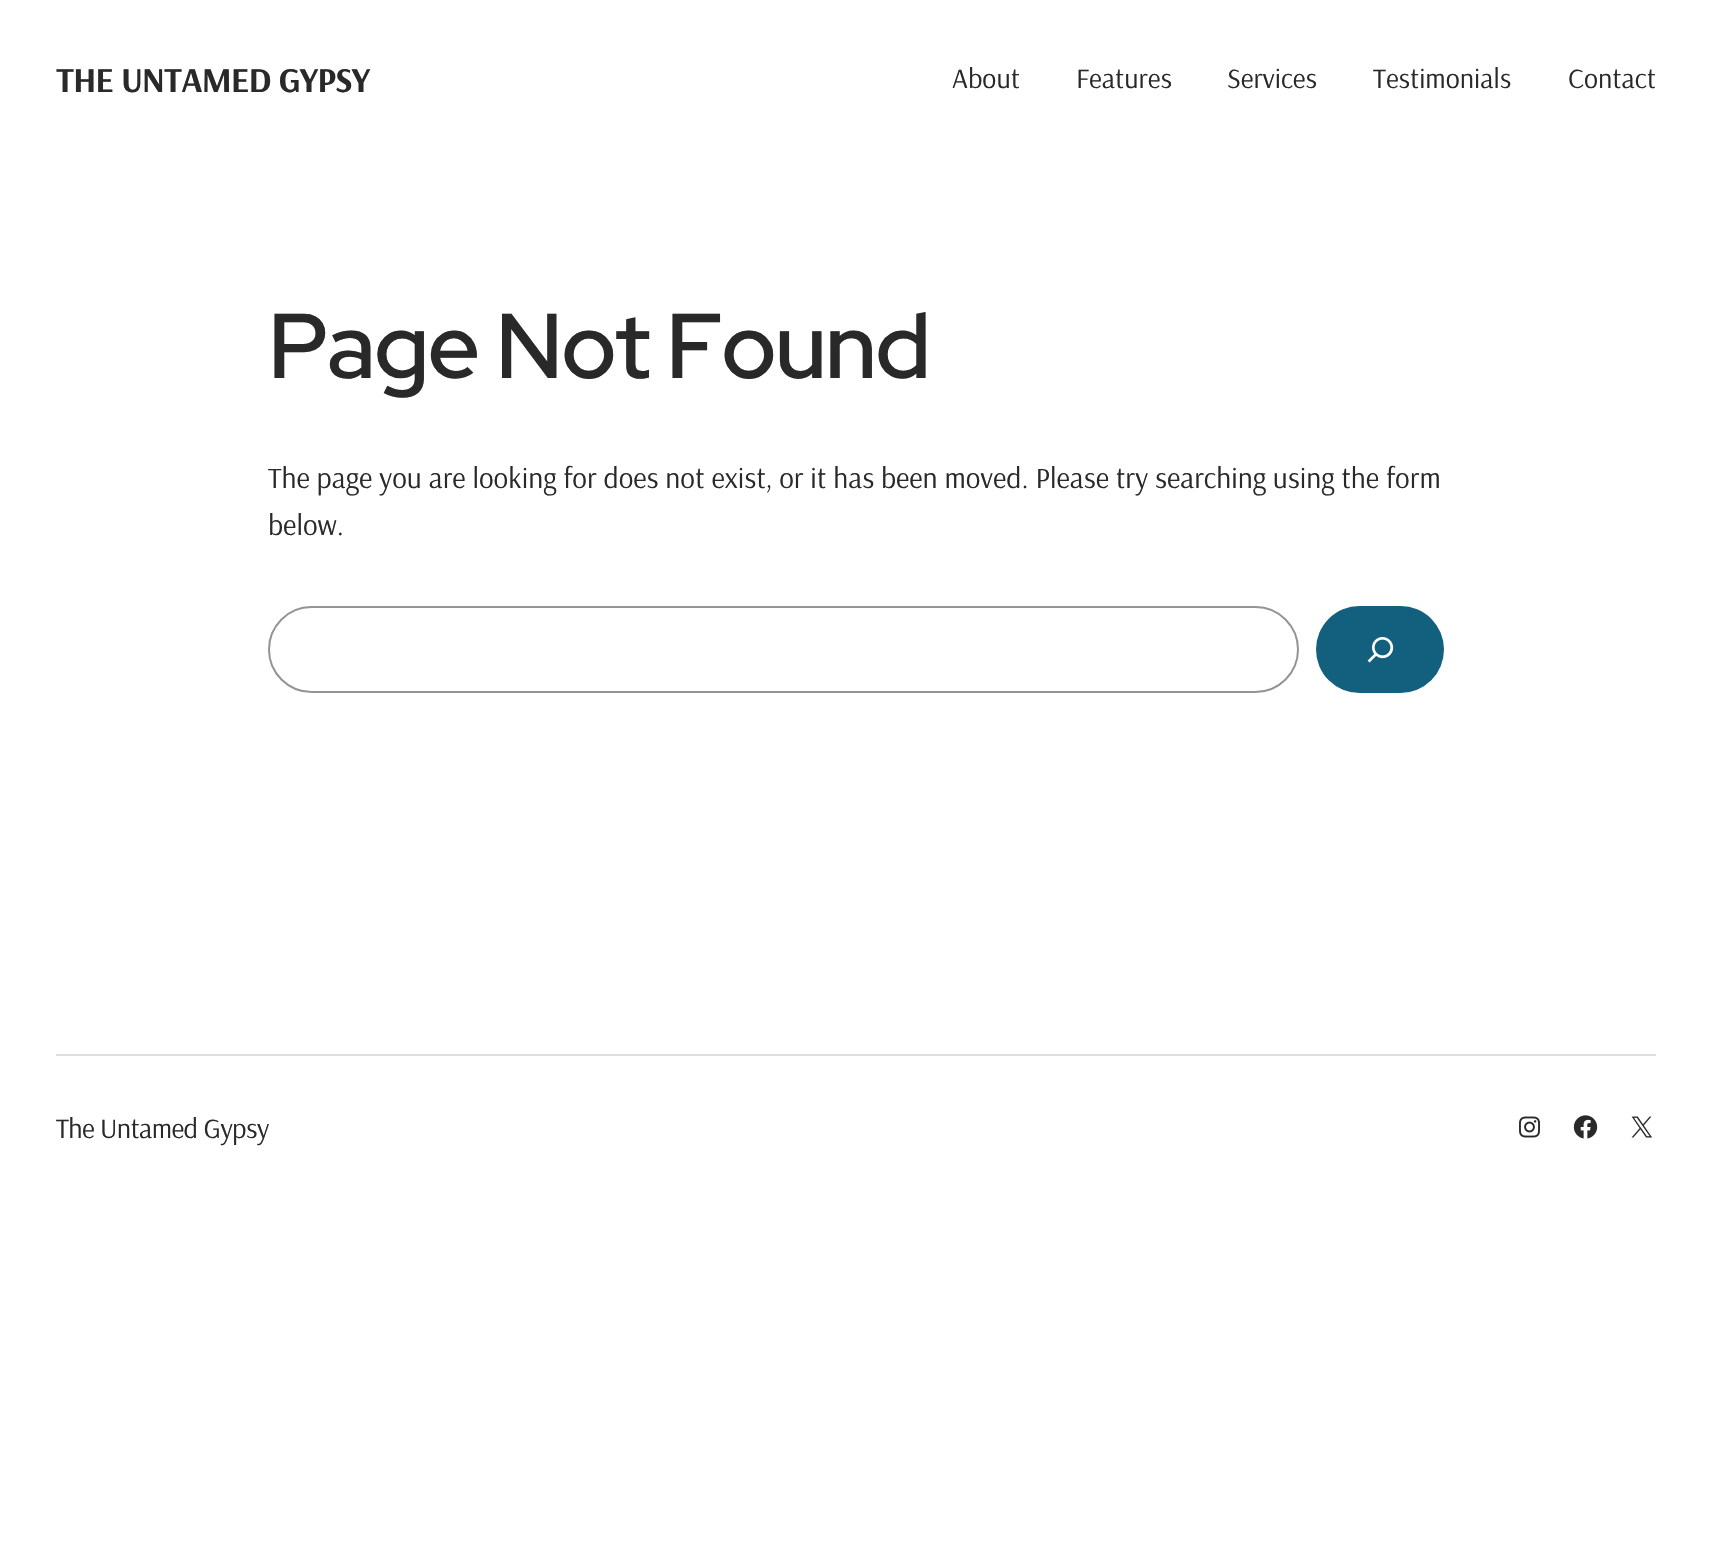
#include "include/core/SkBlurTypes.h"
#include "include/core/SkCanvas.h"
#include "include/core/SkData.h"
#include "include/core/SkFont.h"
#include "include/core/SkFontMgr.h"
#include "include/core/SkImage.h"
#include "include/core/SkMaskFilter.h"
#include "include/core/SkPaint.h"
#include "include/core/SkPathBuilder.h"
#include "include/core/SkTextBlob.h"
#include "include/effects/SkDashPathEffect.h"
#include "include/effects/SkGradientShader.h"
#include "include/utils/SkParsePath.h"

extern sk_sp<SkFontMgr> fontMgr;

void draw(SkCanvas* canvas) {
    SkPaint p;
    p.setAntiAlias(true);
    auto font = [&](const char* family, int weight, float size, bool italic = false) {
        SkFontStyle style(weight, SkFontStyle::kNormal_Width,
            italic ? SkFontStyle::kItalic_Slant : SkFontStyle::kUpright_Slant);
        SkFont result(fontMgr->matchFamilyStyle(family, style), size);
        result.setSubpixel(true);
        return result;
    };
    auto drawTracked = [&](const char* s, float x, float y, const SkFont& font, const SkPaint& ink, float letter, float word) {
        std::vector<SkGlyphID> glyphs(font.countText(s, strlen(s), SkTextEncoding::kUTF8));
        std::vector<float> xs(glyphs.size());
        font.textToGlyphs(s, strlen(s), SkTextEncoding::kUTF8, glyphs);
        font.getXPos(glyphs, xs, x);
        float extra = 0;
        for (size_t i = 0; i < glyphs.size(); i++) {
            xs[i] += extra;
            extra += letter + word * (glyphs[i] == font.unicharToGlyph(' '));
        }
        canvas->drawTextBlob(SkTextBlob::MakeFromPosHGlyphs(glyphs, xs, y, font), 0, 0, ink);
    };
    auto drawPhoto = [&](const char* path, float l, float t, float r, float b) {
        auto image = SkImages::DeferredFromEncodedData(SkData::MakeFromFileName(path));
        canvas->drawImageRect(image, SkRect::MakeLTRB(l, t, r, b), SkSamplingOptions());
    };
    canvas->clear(0xFFFFFFFF);
    auto font1 = font("Arsenal", 700, 35);
    p.setColor(0xFF292929);
    drawTracked("THE UNTAMED GYPSY", 56, 92, font1, p, -0.75f, 0);
    auto font2 = font("Arsenal", 400, 28);
    {
        const struct { const char* s; float x, y; } items[] = {
            {"About", 952, 88},
            {"Features", 1076, 88},
            {"Services", 1227, 88},
            {"Testimonials", 1373, 88},
            {"Contact", 1568, 88},
        };
        for (auto [s, x, y] : items) {
            canvas->drawString(s, x, y, font2, p);
        }
    }
    auto font3 = font("Red Hat Display", 600, 91.75f);
    drawTracked("Page Not Found", 268, 378, font3, p, -1.8f, 0);
    auto font4 = font("Arsenal", 400, 29.3f);
    canvas->drawString("The page you are looking for does not exist, or it has been moved. Please try searching using the form", 268, 488, font4, p);
    canvas->drawString("below.", 268, 535, font4, p);
    p.setStyle(SkPaint::kStroke_Style);
    p.setStrokeWidth(2);
    p.setColor(0xFF949494);
    canvas->drawRoundRect(SkRect::MakeLTRB(269, 607, 1298, 692), 42.5f, 42.5f, p);
    p.setStyle(SkPaint::kFill_Style);
    p.setColor(0xFF13607E);
    canvas->drawRoundRect(SkRect::MakeLTRB(1316, 606, 1444, 693), 43.5f, 43.5f, p);
    drawPhoto("media/1.png", 1367, 637, 1394, 663);
    p.setColor(0xFFDEDEDE);
    canvas->drawRect(SkRect::MakeLTRB(56, 1054, 1656, 1056), p);
    p.setColor(0xFF292929);
    drawTracked("The Untamed Gypsy", 56, 1138, font2, p, -0.6f, 0);
    drawPhoto("media/2.png", 1519, 1116, 1540, 1138);
    drawPhoto("media/3.png", 1573, 1115, 1598, 1139);
    drawPhoto("media/4.png", 1631, 1116, 1652, 1138);
}
